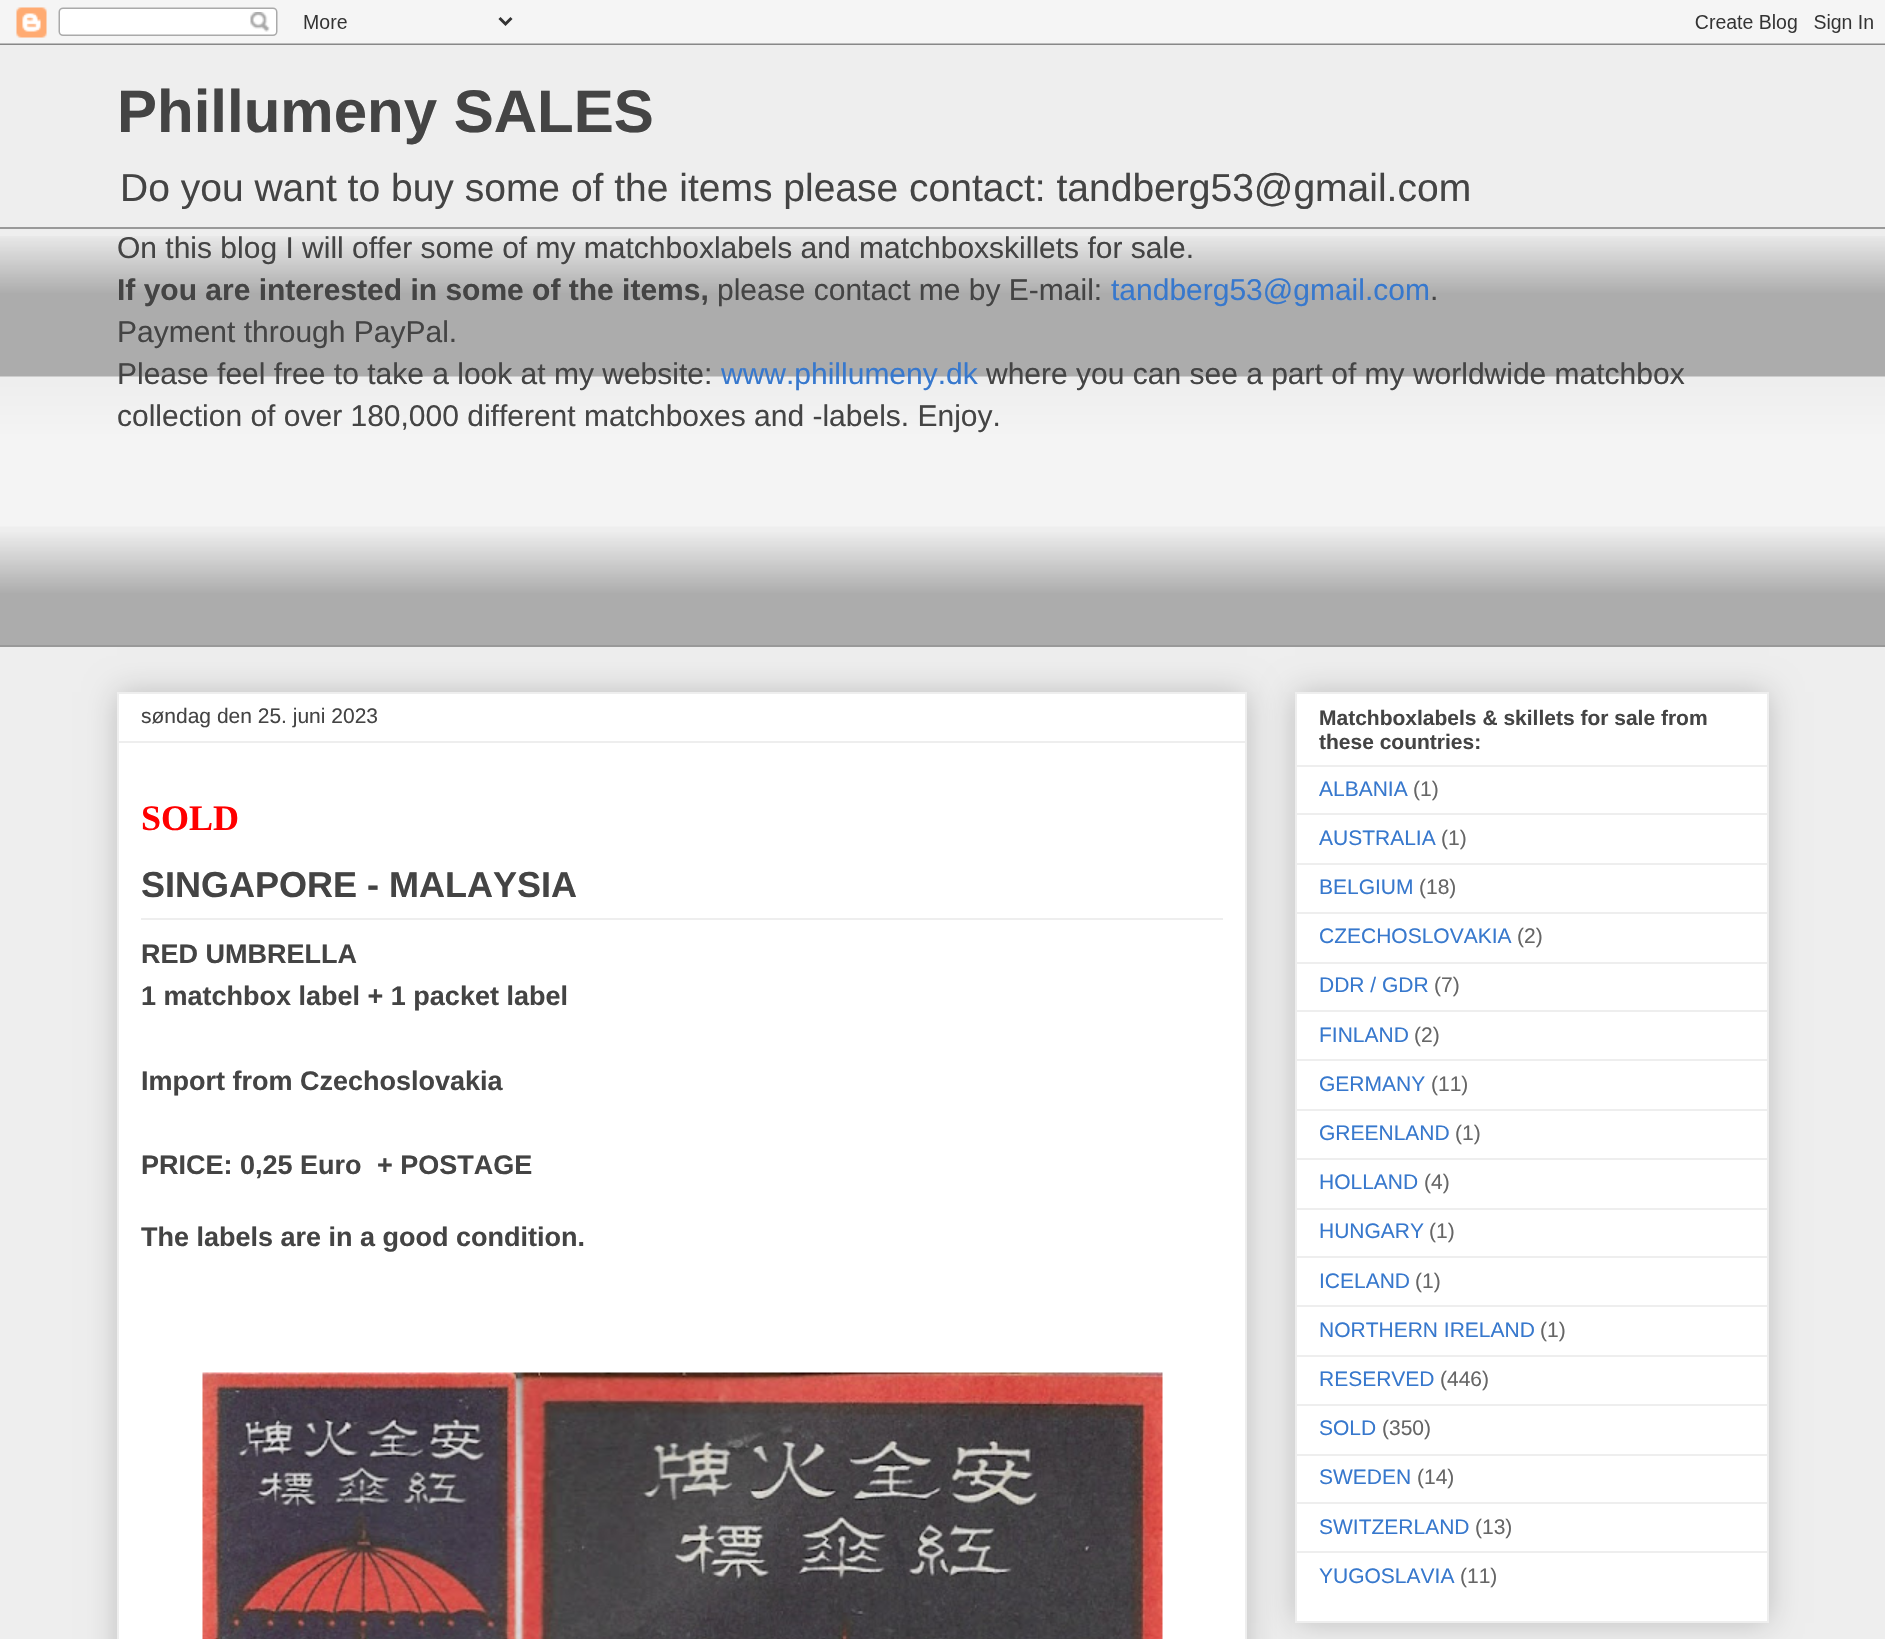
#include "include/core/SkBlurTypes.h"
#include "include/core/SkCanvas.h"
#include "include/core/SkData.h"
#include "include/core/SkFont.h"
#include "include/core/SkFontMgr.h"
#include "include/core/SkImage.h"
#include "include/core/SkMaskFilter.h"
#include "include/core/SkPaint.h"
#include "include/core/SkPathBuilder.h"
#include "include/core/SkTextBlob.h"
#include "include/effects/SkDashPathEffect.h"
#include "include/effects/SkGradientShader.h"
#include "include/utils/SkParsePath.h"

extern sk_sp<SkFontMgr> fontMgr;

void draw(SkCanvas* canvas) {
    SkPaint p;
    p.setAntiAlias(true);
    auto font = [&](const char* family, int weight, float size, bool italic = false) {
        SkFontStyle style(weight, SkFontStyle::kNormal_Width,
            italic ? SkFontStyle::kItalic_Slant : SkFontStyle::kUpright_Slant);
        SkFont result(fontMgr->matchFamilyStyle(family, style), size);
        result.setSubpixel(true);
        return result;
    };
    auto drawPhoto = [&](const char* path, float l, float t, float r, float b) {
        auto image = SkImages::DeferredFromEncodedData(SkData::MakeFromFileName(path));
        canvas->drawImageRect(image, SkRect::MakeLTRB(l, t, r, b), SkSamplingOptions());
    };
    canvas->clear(0xFFEEEEEE);
    drawPhoto("media/1.png", 0, 0, 1885, 45);
    auto font1 = font("Liberation Sans", 700, 60);
    p.setColor(0xFF444444);
    canvas->drawString("Phillumeny SALES", 117, 132, font1, p);
    auto font2 = font("Liberation Sans", 400, 39);
    canvas->drawString("Do you want to buy some of the items please contact: tandberg53@gmail.com", 120, 201, font2, p);
    drawPhoto("media/2.png", 0, 236, 1885, 645);
    p.setColor(0xFF999999);
    canvas->drawRect(SkRect::MakeLTRB(0, 227, 1885, 229), p);
    auto font3 = font("Liberation Sans", 400, 30);
    p.setColor(0xFF444444);
    canvas->drawString("On this blog I will offer some of my matchboxlabels and matchboxskillets for sale.", 117, 258, font3, p);
    auto font4 = font("Liberation Sans", 700, 30);
    canvas->drawString("If you are interested in some of the items,", 117, 300, font4, p);
    canvas->drawString("please contact me by E-mail:", 717, 300, font3, p);
    p.setColor(0xFF3778CD);
    canvas->drawString("tandberg53@gmail.com", 1111, 300, font3, p);
    p.setColor(0xFF444444);
    {
        const struct { const char* s; float x, y; } items[] = {
            {".", 1430, 300},
            {"Payment through PayPal.", 117, 342},
            {"Please feel free to take a look at my website:", 117, 384},
        };
        for (auto [s, x, y] : items) {
            canvas->drawString(s, x, y, font3, p);
        }
    }
    p.setColor(0xFF3778CD);
    canvas->drawString("www.phillumeny.dk", 721, 384, font3, p);
    p.setColor(0xFF444444);
    canvas->drawString("where you can see a part of my worldwide matchbox", 986, 384, font3, p);
    canvas->drawString("collection of over 180,000 different matchboxes and -labels. Enjoy.", 117, 426, font3, p);
    p.setColor(0xFF999999);
    canvas->drawRect(SkRect::MakeLTRB(0, 645, 1885, 647), p);
    p.setColor(0x33000000);
    p.setMaskFilter(SkMaskFilter::MakeBlur(kNormal_SkBlurStyle, 15));
    canvas->drawRect(SkRect::MakeLTRB(117, 692, 1247, 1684), p);
    p.setMaskFilter(nullptr);
    p.setColor(0xFFFFFFFF);
    canvas->drawRect(SkRect::MakeLTRB(118, 693, 1246, 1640), p);
    p.setStyle(SkPaint::kStroke_Style);
    p.setStrokeWidth(2);
    p.setColor(0xFFEEEEEE);
    canvas->drawRect(SkRect::MakeLTRB(118, 693, 1246, 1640), p);
    auto font5 = font("Liberation Sans", 400, 21);
    p.setStyle(SkPaint::kFill_Style);
    p.setColor(0xFF444444);
    canvas->drawString("søndag den 25. juni 2023", 141, 723, font5, p);
    p.setColor(0xFFEEEEEE);
    canvas->drawRect(SkRect::MakeLTRB(119, 741, 1245, 743), p);
    auto font6 = font("Liberation Serif", 700, 36);
    p.setColor(0xFFFF0000);
    canvas->drawString("SOLD", 141, 830, font6, p);
    auto font7 = font("Liberation Sans", 700, 36);
    p.setColor(0xFF444444);
    canvas->drawString("SINGAPORE - MALAYSIA", 141, 897, font7, p);
    p.setColor(0xFFEEEEEE);
    canvas->drawRect(SkRect::MakeLTRB(141, 918, 1223, 920), p);
    auto font8 = font("Liberation Sans", 700, 27);
    p.setColor(0xFF444444);
    {
        const struct { const char* s; float x, y; } items[] = {
            {"RED UMBRELLA", 141, 963},
            {"1 matchbox label + 1 packet label", 141, 1005},
            {"Import from Czechoslovakia", 141, 1090},
            {"PRICE: 0,25 Euro", 141, 1174},
            {"+ POSTAGE", 377, 1174},
            {"The labels are in a good condition.", 141, 1246},
        };
        for (auto [s, x, y] : items) {
            canvas->drawString(s, x, y, font8, p);
        }
    }
    drawPhoto("media/3.png", 202, 1372, 1163, 1639);
    p.setColor(0x33000000);
    p.setMaskFilter(SkMaskFilter::MakeBlur(kNormal_SkBlurStyle, 15));
    canvas->drawRect(SkRect::MakeLTRB(1295, 692, 1769, 1623), p);
    p.setMaskFilter(nullptr);
    p.setColor(0xFFFFFFFF);
    canvas->drawRect(SkRect::MakeLTRB(1296, 693, 1768, 1622), p);
    p.setStyle(SkPaint::kStroke_Style);
    p.setColor(0xFFEEEEEE);
    canvas->drawRect(SkRect::MakeLTRB(1296, 693, 1768, 1622), p);
    auto font9 = font("Liberation Sans", 700, 21);
    p.setStyle(SkPaint::kFill_Style);
    p.setColor(0xFF444444);
    canvas->drawString("Matchboxlabels & skillets for sale from", 1319, 725, font9, p);
    canvas->drawString("these countries:", 1319, 749, font9, p);
    p.setColor(0xFFEEEEEE);
    canvas->drawRect(SkRect::MakeLTRB(1296, 765, 1767, 767), p);
    p.setColor(0xFF3778CD);
    canvas->drawString("ALBANIA", 1319, 796, font5, p);
    p.setColor(0xFF666666);
    canvas->drawString("(1)", 1413, 796, font5, p);
    p.setColor(0xFFEEEEEE);
    canvas->drawRect(SkRect::MakeLTRB(1296, 813, 1767, 815), p);
    p.setColor(0xFF3778CD);
    canvas->drawString("AUSTRALIA", 1319, 845, font5, p);
    p.setColor(0xFF666666);
    canvas->drawString("(1)", 1441, 845, font5, p);
    p.setColor(0xFFEEEEEE);
    canvas->drawRect(SkRect::MakeLTRB(1296, 863, 1767, 865), p);
    p.setColor(0xFF3778CD);
    canvas->drawString("BELGIUM", 1319, 894, font5, p);
    p.setColor(0xFF666666);
    canvas->drawString("(18)", 1419, 894, font5, p);
    p.setColor(0xFFEEEEEE);
    canvas->drawRect(SkRect::MakeLTRB(1296, 912, 1767, 914), p);
    p.setColor(0xFF3778CD);
    canvas->drawString("CZECHOSLOVAKIA", 1319, 943, font5, p);
    p.setColor(0xFF666666);
    canvas->drawString("(2)", 1517, 943, font5, p);
    p.setColor(0xFFEEEEEE);
    canvas->drawRect(SkRect::MakeLTRB(1296, 962, 1767, 964), p);
    p.setColor(0xFF3778CD);
    canvas->drawString("DDR / GDR", 1319, 992, font5, p);
    p.setColor(0xFF666666);
    canvas->drawString("(7)", 1434, 992, font5, p);
    p.setColor(0xFFEEEEEE);
    canvas->drawRect(SkRect::MakeLTRB(1296, 1010, 1767, 1012), p);
    p.setColor(0xFF3778CD);
    canvas->drawString("FINLAND", 1319, 1042, font5, p);
    p.setColor(0xFF666666);
    canvas->drawString("(2)", 1414, 1042, font5, p);
    p.setColor(0xFFEEEEEE);
    canvas->drawRect(SkRect::MakeLTRB(1296, 1059, 1767, 1061), p);
    p.setColor(0xFF3778CD);
    canvas->drawString("GERMANY", 1319, 1091, font5, p);
    p.setColor(0xFF666666);
    canvas->drawString("(11)", 1431, 1091, font5, p);
    p.setColor(0xFFEEEEEE);
    canvas->drawRect(SkRect::MakeLTRB(1296, 1109, 1767, 1111), p);
    p.setColor(0xFF3778CD);
    canvas->drawString("GREENLAND", 1319, 1140, font5, p);
    p.setColor(0xFF666666);
    canvas->drawString("(1)", 1455, 1140, font5, p);
    p.setColor(0xFFEEEEEE);
    canvas->drawRect(SkRect::MakeLTRB(1296, 1158, 1767, 1160), p);
    p.setColor(0xFF3778CD);
    canvas->drawString("HOLLAND", 1319, 1189, font5, p);
    p.setColor(0xFF666666);
    canvas->drawString("(4)", 1424, 1189, font5, p);
    p.setColor(0xFFEEEEEE);
    canvas->drawRect(SkRect::MakeLTRB(1296, 1208, 1767, 1210), p);
    p.setColor(0xFF3778CD);
    canvas->drawString("HUNGARY", 1319, 1238, font5, p);
    p.setColor(0xFF666666);
    canvas->drawString("(1)", 1429, 1238, font5, p);
    p.setColor(0xFFEEEEEE);
    canvas->drawRect(SkRect::MakeLTRB(1296, 1256, 1767, 1258), p);
    p.setColor(0xFF3778CD);
    canvas->drawString("ICELAND", 1319, 1288, font5, p);
    p.setColor(0xFF666666);
    canvas->drawString("(1)", 1415, 1288, font5, p);
    p.setColor(0xFFEEEEEE);
    canvas->drawRect(SkRect::MakeLTRB(1296, 1305, 1767, 1307), p);
    p.setColor(0xFF3778CD);
    canvas->drawString("NORTHERN IRELAND", 1319, 1337, font5, p);
    p.setColor(0xFF666666);
    canvas->drawString("(1)", 1540, 1337, font5, p);
    p.setColor(0xFFEEEEEE);
    canvas->drawRect(SkRect::MakeLTRB(1296, 1355, 1767, 1357), p);
    p.setColor(0xFF3778CD);
    canvas->drawString("RESERVED", 1319, 1386, font5, p);
    p.setColor(0xFF666666);
    canvas->drawString("(446)", 1440, 1386, font5, p);
    p.setColor(0xFFEEEEEE);
    canvas->drawRect(SkRect::MakeLTRB(1296, 1404, 1767, 1406), p);
    p.setColor(0xFF3778CD);
    canvas->drawString("SOLD", 1319, 1435, font5, p);
    p.setColor(0xFF666666);
    canvas->drawString("(350)", 1382, 1435, font5, p);
    p.setColor(0xFFEEEEEE);
    canvas->drawRect(SkRect::MakeLTRB(1296, 1454, 1767, 1456), p);
    p.setColor(0xFF3778CD);
    canvas->drawString("SWEDEN", 1319, 1484, font5, p);
    p.setColor(0xFF666666);
    canvas->drawString("(14)", 1417, 1484, font5, p);
    p.setColor(0xFFEEEEEE);
    canvas->drawRect(SkRect::MakeLTRB(1296, 1502, 1767, 1504), p);
    p.setColor(0xFF3778CD);
    canvas->drawString("SWITZERLAND", 1319, 1534, font5, p);
    p.setColor(0xFF666666);
    canvas->drawString("(13)", 1475, 1534, font5, p);
    p.setColor(0xFFEEEEEE);
    canvas->drawRect(SkRect::MakeLTRB(1296, 1551, 1767, 1553), p);
    p.setColor(0xFF3778CD);
    canvas->drawString("YUGOSLAVIA", 1319, 1583, font5, p);
    p.setColor(0xFF666666);
    canvas->drawString("(11)", 1460, 1583, font5, p);
}
